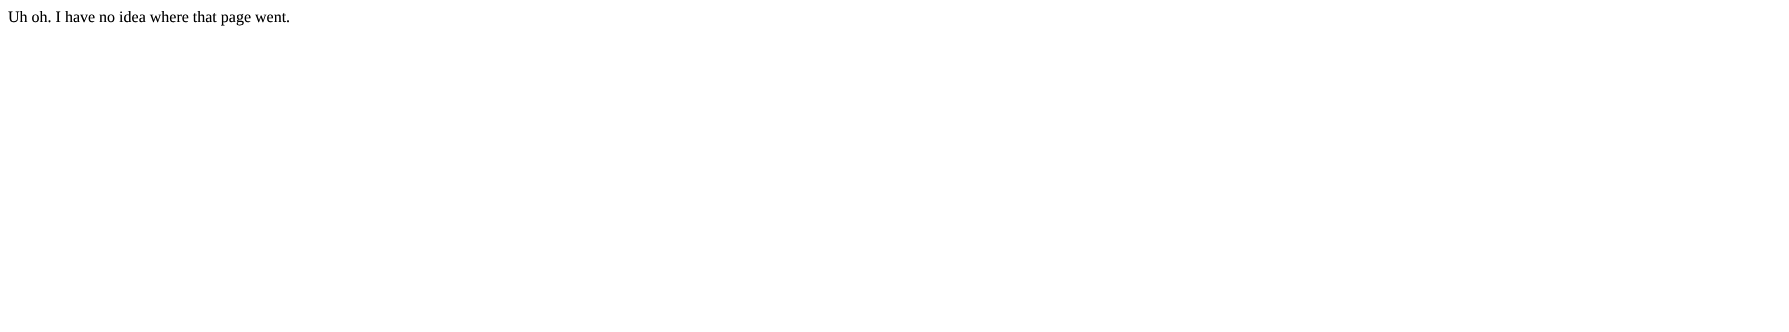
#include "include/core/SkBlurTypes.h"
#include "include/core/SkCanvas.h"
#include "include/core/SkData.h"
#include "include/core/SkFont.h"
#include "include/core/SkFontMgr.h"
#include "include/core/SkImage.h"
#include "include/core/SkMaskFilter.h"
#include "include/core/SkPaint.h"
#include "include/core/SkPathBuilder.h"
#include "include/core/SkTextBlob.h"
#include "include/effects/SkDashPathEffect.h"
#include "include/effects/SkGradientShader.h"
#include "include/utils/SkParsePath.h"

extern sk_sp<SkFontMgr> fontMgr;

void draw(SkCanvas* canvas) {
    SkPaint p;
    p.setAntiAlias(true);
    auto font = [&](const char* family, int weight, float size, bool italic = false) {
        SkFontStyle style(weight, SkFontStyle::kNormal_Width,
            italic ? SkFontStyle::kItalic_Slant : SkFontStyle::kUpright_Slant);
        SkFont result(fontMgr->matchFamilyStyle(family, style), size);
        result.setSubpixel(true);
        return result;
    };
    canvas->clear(0xFFFFFFFF);
    auto font1 = font("Liberation Serif", 400, 16);
    p.setColor(0xFF000000);
    canvas->drawString("Uh oh. I have no idea where that page went.", 8, 22, font1, p);
}
